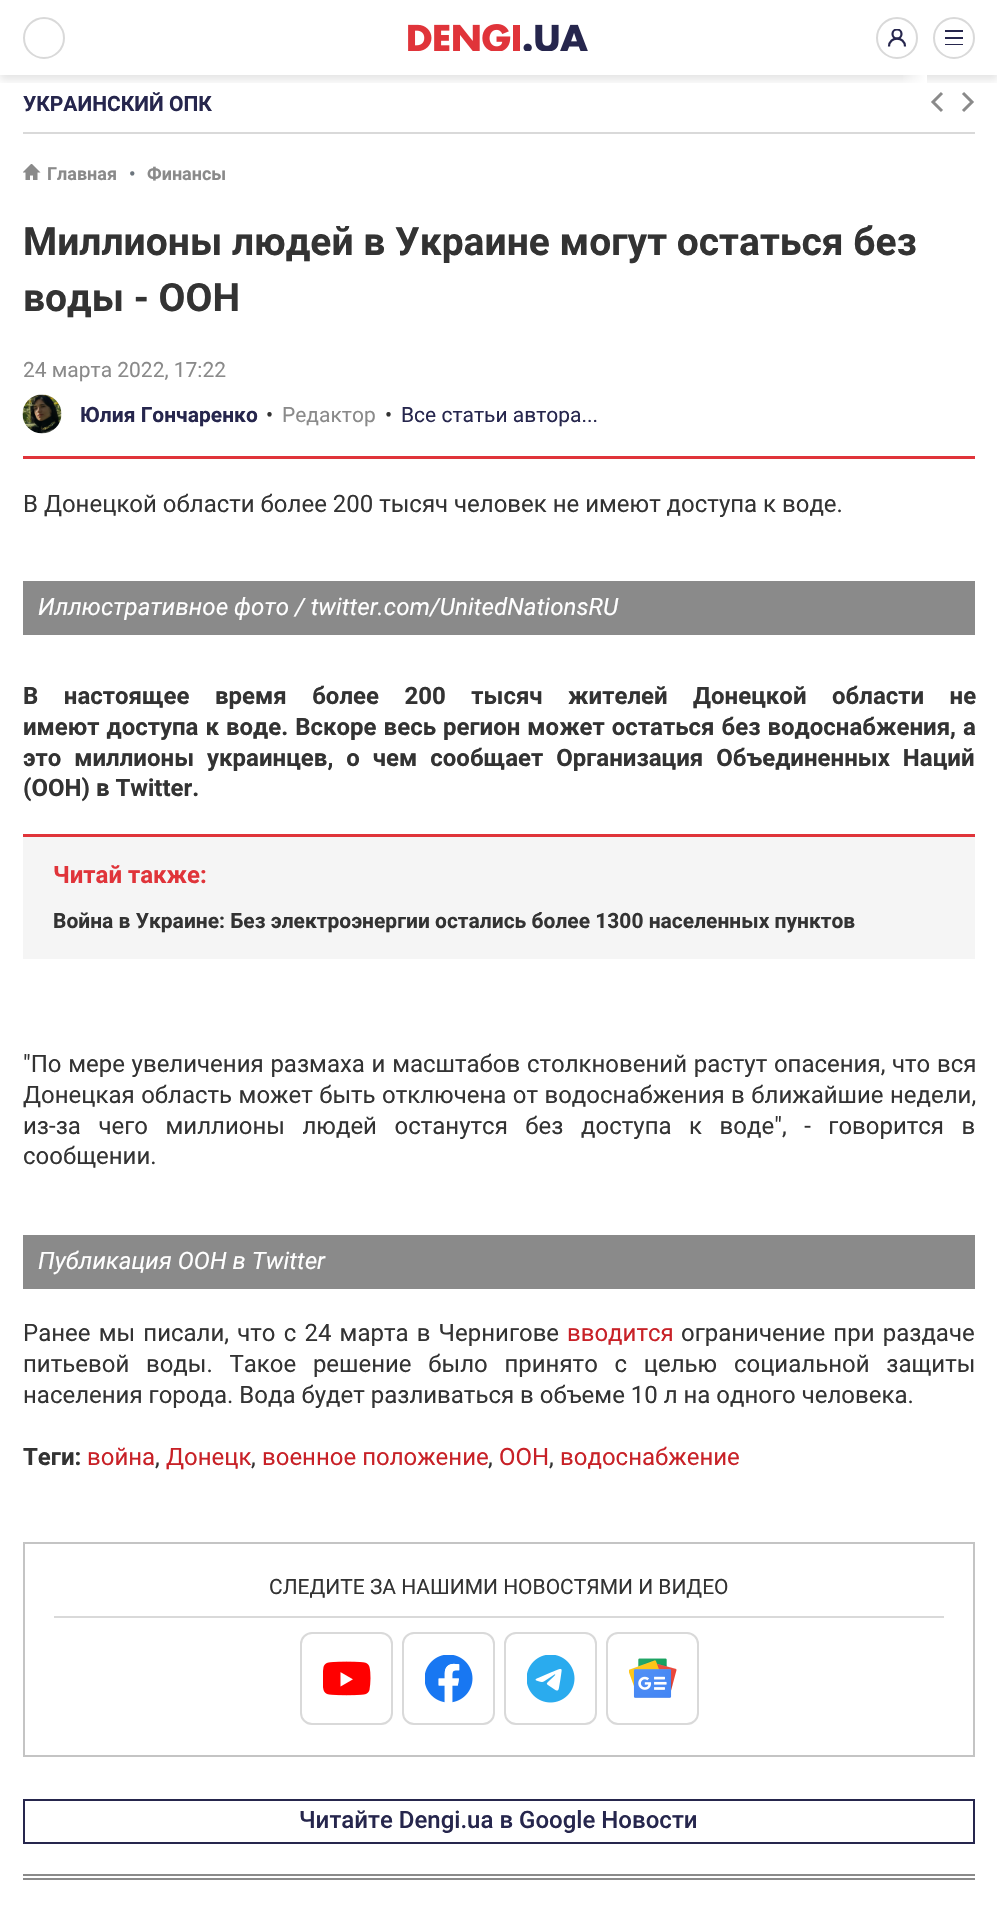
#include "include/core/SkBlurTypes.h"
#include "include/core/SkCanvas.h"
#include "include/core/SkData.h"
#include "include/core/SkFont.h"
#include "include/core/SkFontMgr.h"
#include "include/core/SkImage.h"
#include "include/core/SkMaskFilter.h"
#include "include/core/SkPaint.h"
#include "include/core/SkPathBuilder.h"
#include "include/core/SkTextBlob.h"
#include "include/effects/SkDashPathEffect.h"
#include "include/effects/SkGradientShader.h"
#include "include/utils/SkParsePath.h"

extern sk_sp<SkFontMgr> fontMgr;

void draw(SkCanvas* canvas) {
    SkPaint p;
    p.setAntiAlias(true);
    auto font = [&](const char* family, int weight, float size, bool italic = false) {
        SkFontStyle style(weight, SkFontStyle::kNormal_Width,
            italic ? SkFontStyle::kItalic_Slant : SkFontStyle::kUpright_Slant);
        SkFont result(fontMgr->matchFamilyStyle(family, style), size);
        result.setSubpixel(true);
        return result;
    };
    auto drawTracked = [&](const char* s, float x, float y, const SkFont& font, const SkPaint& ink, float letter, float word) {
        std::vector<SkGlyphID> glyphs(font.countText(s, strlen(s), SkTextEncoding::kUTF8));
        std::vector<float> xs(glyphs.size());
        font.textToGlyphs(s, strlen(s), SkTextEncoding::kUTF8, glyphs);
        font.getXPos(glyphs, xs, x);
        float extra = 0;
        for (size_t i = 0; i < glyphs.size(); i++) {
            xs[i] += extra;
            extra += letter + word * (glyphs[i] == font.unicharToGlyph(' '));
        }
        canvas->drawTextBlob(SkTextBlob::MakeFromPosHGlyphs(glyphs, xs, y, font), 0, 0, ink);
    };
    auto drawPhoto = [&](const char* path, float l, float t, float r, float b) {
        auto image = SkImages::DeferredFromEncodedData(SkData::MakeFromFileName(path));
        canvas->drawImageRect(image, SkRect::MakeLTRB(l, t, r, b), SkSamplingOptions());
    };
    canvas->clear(0xFFFFFFFF);
    canvas->save();
    canvas->clipRect(SkRect::MakeLTRB(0, 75, 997, 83));
    p.setColor(0x1A000000);
    p.setMaskFilter(SkMaskFilter::MakeBlur(kNormal_SkBlurStyle, 4));
    canvas->drawRect(SkRect::MakeLTRB(0, 5, 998, 80), p);
    p.setMaskFilter(nullptr);
    canvas->restore();
    p.setStyle(SkPaint::kStroke_Style);
    p.setStrokeWidth(2);
    p.setColor(0xFFD9D9D9);
    canvas->drawCircle(44, 38, 20, p);
    drawPhoto("media/1.png", 408, 24, 588, 51);
    canvas->save();
    canvas->clipRect(SkRect::MakeLTRB(888, 29, 906, 47));
    p.setStrokeWidth(2.2f);
    p.setColor(0xFF26264D);
    canvas->drawCircle(897, 34, 4.5f, p);
    canvas->restore();
    canvas->drawPath(SkPathBuilder().moveTo(905, 46.5f).cubicTo(905, 36, 889, 36, 889, 46.5f).detach(), p);
    p.setStrokeWidth(2);
    p.setColor(0xFFD9D9D9);
    canvas->drawCircle(897, 38, 20, p);
    p.setStyle(SkPaint::kFill_Style);
    {
        const struct { float l, t, r, b; SkColor color; } items[] = {
            {945, 30, 963, 32, 0xFF26264D},
            {945, 37, 963, 39, 0xFF26264D},
            {945, 44, 963, 45, 0xFF26264D},
        };
        for (auto [l, t, r, b, color] : items) {
            p.setColor(color);
            canvas->drawRect(SkRect::MakeLTRB(l, t, r, b), p);
        }
    }
    p.setStyle(SkPaint::kStroke_Style);
    p.setColor(0xFFD9D9D9);
    canvas->drawCircle(954, 38, 20, p);
    p.setStyle(SkPaint::kFill_Style);
    canvas->drawRect(SkRect::MakeLTRB(23, 132, 975, 134), p);
    {
        const SkColor colors[] = {0xFFFFFFFF, 0x00FFFFFF};
        const float stops[] = {0, 1};
        const SkPoint ends[] = {{927, 93}, {900, 93}};
        p.setShader(SkGradientShader::MakeLinear(ends, colors, stops, 2, SkTileMode::kClamp));
        p.setAlpha(255);
    }
    canvas->drawRect(SkRect::MakeLTRB(903, 75, 927, 85), p);
    auto font1 = font("Roboto", 700, 21);
    p.setShader(nullptr);
    p.setColor(0xFF26264D);
    canvas->drawString("УКРАИНСКИЙ ОПК", 23, 111, font1, p);
    p.setStyle(SkPaint::kStroke_Style);
    p.setStrokeWidth(3);
    p.setColor(0xFF8A8A8A);
    canvas->drawPath(SkPathBuilder().moveTo(942, 93).lineTo(933, 102).lineTo(942, 111).moveTo(963, 93).lineTo(972, 102).lineTo(963, 111).detach(), p);
    drawPhoto("media/2.png", 23, 164, 41, 180);
    auto font2 = font("Roboto", 700, 18);
    p.setStyle(SkPaint::kFill_Style);
    canvas->drawString("Главная", 47, 180, font2, p);
    p.setColor(0xFF6C757D);
    canvas->drawString("•", 129, 180, font2, p);
    p.setColor(0xFF8A8A8A);
    canvas->drawString("Финансы", 147, 180, font2, p);
    p.setColor(0xFFE0343A);
    canvas->drawRect(SkRect::MakeLTRB(23, 456, 975, 459), p);
    auto font3 = font("Roboto", 700, 39);
    p.setColor(0xFF333333);
    canvas->drawString("Миллионы людей в Украине могут остаться без", 23, 255, font3, p);
    canvas->drawString("воды - ООН", 23, 311, font3, p);
    auto font4 = font("Roboto", 400, 21);
    p.setColor(0xFF8A8A8A);
    canvas->drawString("24 марта 2022, 17:22", 23, 377, font4, p);
    drawPhoto("media/3.png", 22, 394, 62, 434);
    p.setColor(0xFF26264D);
    canvas->drawString("Юлия Гончаренко", 80, 422, font1, p);
    p.setColor(0xFF333333);
    canvas->drawString("•", 266, 422, font4, p);
    p.setColor(0xFF8A8A8A);
    canvas->drawString("Редактор", 282, 422, font4, p);
    p.setColor(0xFF333333);
    canvas->drawString("•", 385, 422, font4, p);
    p.setColor(0xFF26264D);
    canvas->drawString("Все статьи автора...", 401, 422, font4, p);
    auto font5 = font("Roboto", 400, 24);
    p.setColor(0xFF333333);
    canvas->drawString("В Донецкой области более 200 тысяч человек не имеют доступа к воде.", 23, 512, font5, p);
    p.setColor(0xFF8A8A8A);
    canvas->drawRect(SkRect::MakeLTRB(23, 581, 975, 635), p);
    auto font6 = font("Roboto", 400, 24, true);
    p.setColor(0xFFFFFFFF);
    canvas->drawString("Иллюстративное фото / twitter.com/UnitedNationsRU", 38, 615, font6, p);
    auto font7 = font("Roboto", 700, 24);
    p.setColor(0xFF333333);
    drawTracked("В настоящее время более 200 тысяч жителей Донецкой области не", 23, 704, font7, p, 0, 19.5f);
    drawTracked("имеют доступа к воде. Вскоре весь регион может остаться без водоснабжения, а", 23, 735, font7, p, 0, 1);
    drawTracked("это миллионы украинцев, о чем сообщает Организация Объединенных Наций", 23, 766, font7, p, 0, 7);
    canvas->drawString("(ООН) в Twitter.", 23, 796, font7, p);
    p.setColor(0xFFF5F5F5);
    canvas->drawRect(SkRect::MakeLTRB(23, 837, 975, 959), p);
    p.setColor(0xFFE0343A);
    canvas->drawRect(SkRect::MakeLTRB(23, 834, 975, 837), p);
    canvas->drawString("Читай также:", 53, 883, font7, p);
    p.setColor(0xFF333333);
    canvas->drawString("Война в Украине: Без электроэнергии остались более 1300 населенных пунктов", 53, 928, font1, p);
    drawTracked("\"По мере увеличения размаха и масштабов столкновений растут опасения, что вся", 23, 1072, font5, p, 0, 0.75f);
    drawTracked("Донецкая область может быть отключена от водоснабжения в ближайшие недели,", 23, 1103, font5, p, 0, 0.5f);
    drawTracked("из-за чего миллионы людей останутся без доступа к воде\", - говорится в", 23, 1134, font5, p, 0, 11.6f);
    canvas->drawString("сообщении.", 23, 1164, font5, p);
    p.setColor(0xFF8A8A8A);
    canvas->drawRect(SkRect::MakeLTRB(23, 1235, 975, 1289), p);
    p.setColor(0xFFFFFFFF);
    canvas->drawString("Публикация ООН в Twitter", 38, 1269, font6, p);
    p.setColor(0xFF333333);
    drawTracked("Ранее мы писали, что с 24 марта в Чернигове", 23, 1341, font5, p, 0, 2.25f);
    p.setColor(0xFFC82127);
    canvas->drawString("вводится", 567, 1341, font5, p);
    p.setColor(0xFF333333);
    drawTracked("ограничение при раздаче", 681, 1341, font5, p, 0, 2.25f);
    drawTracked("питьевой воды. Такое решение было принято с целью социальной защиты", 23, 1372, font5, p, 0, 10.75f);
    canvas->drawString("населения города. Вода будет разливаться в объеме 10 л на одного человека.", 23, 1403, font5, p);
    p.setColor(0xFF8A8A8A);
    canvas->drawRect(SkRect::MakeLTRB(23, 1874, 975, 1876), p);
    p.setColor(0xFF333333);
    canvas->drawString("Теги:", 23, 1465, font7, p);
    p.setColor(0xFFC82127);
    canvas->drawString("война", 87, 1465, font5, p);
    p.setColor(0xFF333333);
    canvas->drawString(",", 155, 1465, font5, p);
    p.setColor(0xFFC82127);
    canvas->drawString("Донецк", 166, 1465, font5, p);
    p.setColor(0xFF333333);
    canvas->drawString(",", 251, 1465, font5, p);
    p.setColor(0xFFC82127);
    canvas->drawString("военное положение", 262, 1465, font5, p);
    p.setColor(0xFF333333);
    canvas->drawString(",", 488, 1465, font5, p);
    p.setColor(0xFFC82127);
    canvas->drawString("ООН", 499, 1465, font5, p);
    p.setColor(0xFF333333);
    canvas->drawString(",", 549, 1465, font5, p);
    p.setColor(0xFFC82127);
    canvas->drawString("водоснабжение", 560, 1465, font5, p);
    p.setStyle(SkPaint::kStroke_Style);
    p.setStrokeWidth(2);
    p.setColor(0xFFC4C4C4);
    canvas->drawRect(SkRect::MakeLTRB(24, 1543, 974, 1756), p);
    p.setStyle(SkPaint::kFill_Style);
    p.setColor(0xFFD9D9D9);
    canvas->drawRect(SkRect::MakeLTRB(54, 1616, 944, 1618), p);
    p.setColor(0xFF333333);
    canvas->drawString("СЛЕДИТЕ ЗА НАШИМИ НОВОСТЯМИ И ВИДЕО", 269, 1594, font4, p);
    p.setStyle(SkPaint::kStroke_Style);
    p.setColor(0xFFD9D9D9);
    canvas->drawRoundRect(SkRect::MakeLTRB(301, 1633, 392, 1724), 11, 11, p);
    drawPhoto("media/4.png", 323, 1661, 371, 1696);
    canvas->drawRoundRect(SkRect::MakeLTRB(403, 1633, 494, 1724), 11, 11, p);
    drawPhoto("media/5.png", 425, 1655, 473, 1703);
    canvas->drawRoundRect(SkRect::MakeLTRB(505, 1633, 596, 1724), 11, 11, p);
    drawPhoto("media/6.png", 527, 1655, 575, 1703);
    canvas->drawRoundRect(SkRect::MakeLTRB(607, 1633, 698, 1724), 11, 11, p);
    drawPhoto("media/7.png", 629, 1658, 677, 1698);
    p.setColor(0xFF26264D);
    canvas->drawRect(SkRect::MakeLTRB(24, 1800, 974, 1843), p);
    auto font8 = font("Roboto", 500, 24);
    p.setStyle(SkPaint::kFill_Style);
    canvas->drawString("Читайте Dengi.ua в Google Новости", 299, 1828, font8, p);
    p.setColor(0xFF8A8A8A);
    canvas->drawRect(SkRect::MakeLTRB(23, 1878, 975, 1880), p);
}
